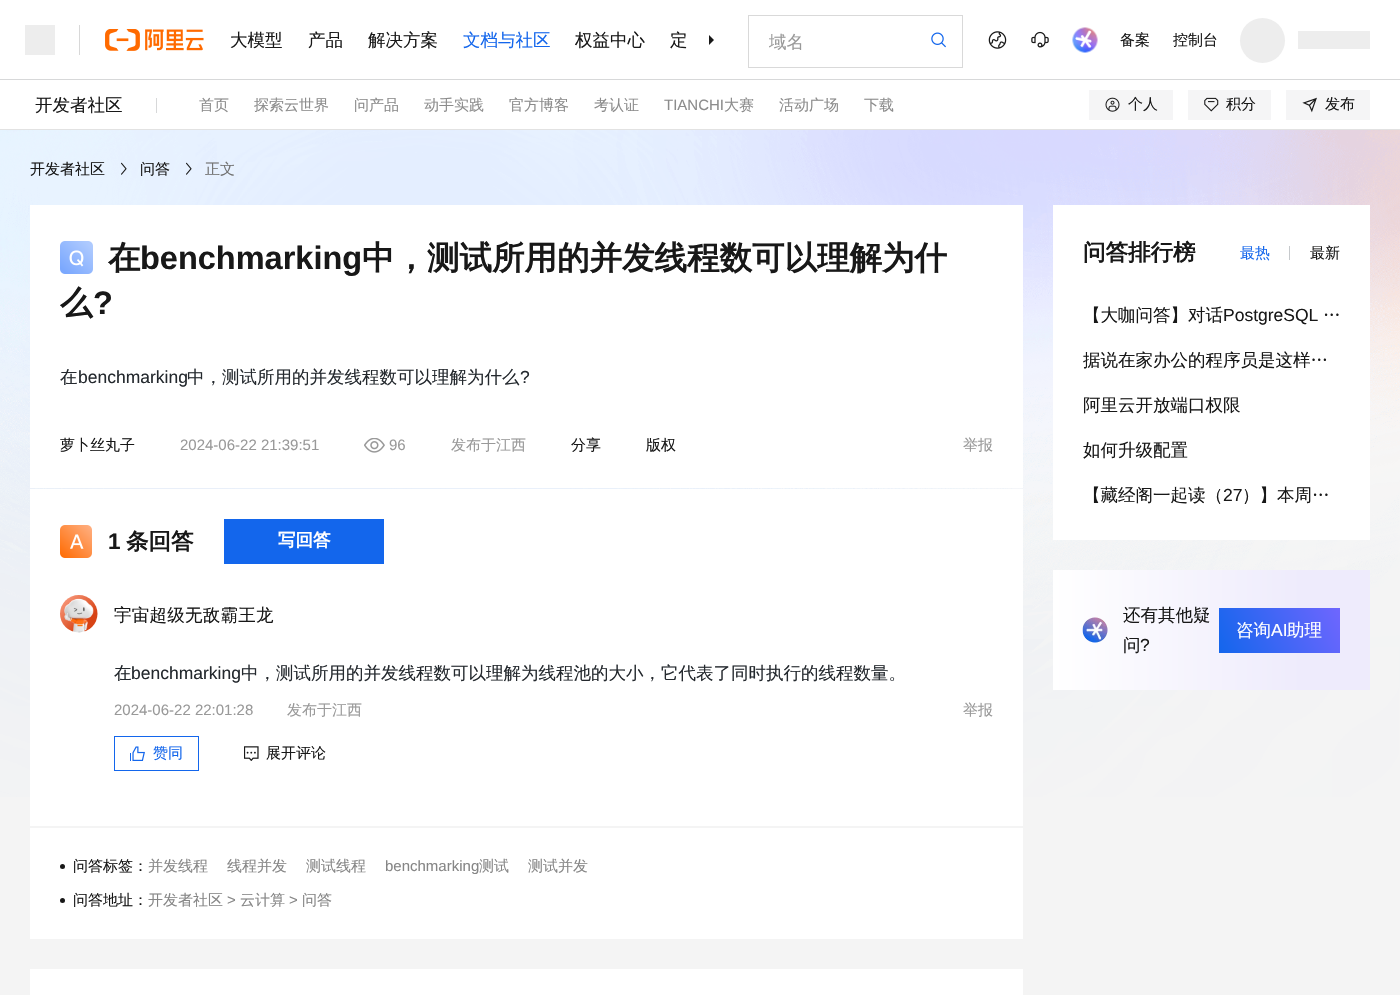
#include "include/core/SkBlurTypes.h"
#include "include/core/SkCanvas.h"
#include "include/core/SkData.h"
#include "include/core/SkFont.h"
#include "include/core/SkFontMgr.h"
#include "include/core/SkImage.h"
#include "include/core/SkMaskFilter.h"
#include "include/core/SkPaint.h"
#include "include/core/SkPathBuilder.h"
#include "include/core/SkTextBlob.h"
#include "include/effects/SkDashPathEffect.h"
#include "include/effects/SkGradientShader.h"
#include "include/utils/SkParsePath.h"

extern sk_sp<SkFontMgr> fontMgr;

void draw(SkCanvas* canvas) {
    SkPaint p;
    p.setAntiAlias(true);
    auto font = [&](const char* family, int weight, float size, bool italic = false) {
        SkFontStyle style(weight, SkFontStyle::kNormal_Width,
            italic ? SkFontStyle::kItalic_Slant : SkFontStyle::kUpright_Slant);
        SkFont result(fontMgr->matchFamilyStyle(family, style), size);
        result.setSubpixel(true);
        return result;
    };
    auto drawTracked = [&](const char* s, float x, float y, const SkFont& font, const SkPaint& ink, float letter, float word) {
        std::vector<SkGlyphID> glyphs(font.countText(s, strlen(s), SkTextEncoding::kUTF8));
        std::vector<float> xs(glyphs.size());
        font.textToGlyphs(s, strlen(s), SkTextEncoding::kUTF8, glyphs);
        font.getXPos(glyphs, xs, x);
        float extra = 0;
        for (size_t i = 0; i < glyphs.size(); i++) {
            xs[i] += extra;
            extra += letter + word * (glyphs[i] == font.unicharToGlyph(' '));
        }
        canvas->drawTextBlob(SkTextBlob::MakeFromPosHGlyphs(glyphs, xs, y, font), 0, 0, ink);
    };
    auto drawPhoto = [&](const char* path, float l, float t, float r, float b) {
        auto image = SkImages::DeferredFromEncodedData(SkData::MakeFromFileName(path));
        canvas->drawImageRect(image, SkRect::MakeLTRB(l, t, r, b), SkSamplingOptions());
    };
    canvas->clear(0xFFF4F4F4);
    p.setColor(0x26000000);
    p.setMaskFilter(SkMaskFilter::MakeBlur(kNormal_SkBlurStyle, 2.5f));
    canvas->drawRect(SkRect::MakeLTRB(3, 85, 1398, 130), p);
    p.setMaskFilter(nullptr);
    {
        const struct { float l, t, r, b; SkColor color; } items[] = {
            {0, 0, 1400, 79, 0xFFFFFFFF},
            {0, 79, 1400, 80, 0xFFD7D8D9},
            {25, 25, 55, 55, 0xFFEDEDED},
            {79, 25, 80, 55, 0xFFD8D8D8},
        };
        for (auto [l, t, r, b, color] : items) {
            p.setColor(color);
            canvas->drawRect(SkRect::MakeLTRB(l, t, r, b), p);
        }
    }
    drawPhoto("media/1.png", 105, 29, 204, 51);
    auto font1 = font("WenQuanYi Zen Hei", 500, 17.5f);
    p.setColor(0xFF181818);
    {
        const struct { const char* s; float x, y; } items[] = {
            {"大模型", 230, 46},
            {"产品", 308, 46},
            {"解决方案", 368, 46},
        };
        for (auto [s, x, y] : items) {
            canvas->drawString(s, x, y, font1, p);
        }
    }
    p.setColor(0xFF1366EC);
    canvas->drawString("文档与社区", 463, 46, font1, p);
    p.setColor(0xFF181818);
    canvas->drawString("权益中心", 575, 46, font1, p);
    canvas->drawString("定", 670, 46, font1, p);
    canvas->drawPath(SkPathBuilder().moveTo(709, 35).lineTo(714, 40).lineTo(709, 45).close().detach(), p);
    p.setStyle(SkPaint::kStroke_Style);
    p.setStrokeWidth(1);
    p.setColor(0xFFD9D9D9);
    canvas->drawRect(SkRect::MakeLTRB(748.5f, 15.5f, 962.5f, 67.5f), p);
    p.setStyle(SkPaint::kFill_Style);
    p.setColor(0xFF999999);
    canvas->drawString("域名", 769, 48, font1, p);
    drawPhoto("media/2.png", 931, 32, 946, 48);
    drawPhoto("media/3.png", 988, 31, 1007, 49);
    drawPhoto("media/4.png", 1031, 31, 1049, 48);
    drawPhoto("media/5.png", 1072, 27, 1098, 53);
    drawPhoto("media/6.png", 1075, 30, 1092, 48);
    auto font2 = font("WenQuanYi Zen Hei", 500, 15);
    p.setColor(0xFF181818);
    canvas->drawString("备案", 1120, 45, font2, p);
    canvas->drawString("控制台", 1173, 45, font2, p);
    p.setColor(0xFFEDEDED);
    canvas->drawCircle(1262.5f, 40.5f, 22.5f, p);
    {
        const struct { float l, t, r, b; SkColor color; } items[] = {
            {1298, 31, 1370, 49, 0xFFEDEDED},
            {0, 80, 1400, 129, 0xFFFFFFFF},
            {0, 129, 1400, 130, 0xFFE2E2E2},
        };
        for (auto [l, t, r, b, color] : items) {
            p.setColor(color);
            canvas->drawRect(SkRect::MakeLTRB(l, t, r, b), p);
        }
    }
    p.setColor(0xFF181818);
    canvas->drawString("开发者社区", 35, 111, font1, p);
    p.setColor(0xFFD7D8D9);
    canvas->drawRect(SkRect::MakeLTRB(156, 98, 157, 113), p);
    p.setColor(0xFF8C8C8C);
    {
        const struct { const char* s; float x, y; } items[] = {
            {"首页", 199, 110},
            {"探索云世界", 254, 110},
            {"问产品", 354, 110},
            {"动手实践", 424, 110},
            {"官方博客", 509, 110},
            {"考认证", 594, 110},
        };
        for (auto [s, x, y] : items) {
            canvas->drawString(s, x, y, font2, p);
        }
    }
    auto font3 = font("Liberation Sans", 400, 15);
    canvas->drawString("TIANCHI", 664, 110, font3, p);
    {
        const struct { const char* s; float x, y; } items[] = {
            {"大赛", 724, 110},
            {"活动广场", 779, 110},
            {"下载", 864, 110},
        };
        for (auto [s, x, y] : items) {
            canvas->drawString(s, x, y, font2, p);
        }
    }
    p.setColor(0xFFF5F5F6);
    canvas->drawRect(SkRect::MakeLTRB(1089, 90, 1173, 120), p);
    drawPhoto("media/7.png", 1105, 97, 1120, 112);
    p.setColor(0xFF181818);
    canvas->drawString("个人", 1128, 109, font2, p);
    p.setColor(0xFFF5F5F6);
    canvas->drawRect(SkRect::MakeLTRB(1188, 90, 1271, 120), p);
    drawPhoto("media/8.png", 1204, 97, 1219, 112);
    p.setColor(0xFF181818);
    canvas->drawString("积分", 1226, 109, font2, p);
    p.setColor(0xFFF5F5F6);
    canvas->drawRect(SkRect::MakeLTRB(1286, 90, 1370, 120), p);
    drawPhoto("media/9.png", 1302, 97, 1317, 113);
    p.setColor(0xFF181818);
    canvas->drawString("发布", 1325, 109, font2, p);
    drawPhoto("media/10.png", 0, 130, 1400, 797);
    canvas->drawString("开发者社区", 30, 174, font2, p);
    drawPhoto("media/11.png", 121, 162, 127, 175);
    canvas->drawString("问答", 140, 174, font2, p);
    drawPhoto("media/12.png", 186, 162, 192, 175);
    p.setColor(0xFF717171);
    canvas->drawString("正文", 205, 174, font2, p);
    p.setColor(0xFFFFFFFF);
    canvas->drawRect(SkRect::MakeLTRB(30, 205, 1023, 488), p);
    drawPhoto("media/13.png", 60, 241, 93, 274);
    auto font4 = font("WenQuanYi Zen Hei", 700, 32.5f);
    p.setColor(0xFF181818);
    canvas->drawString("在", 108, 269, font4, p);
    auto font5 = font("Liberation Sans", 700, 32.5f);
    canvas->drawString("benchmarking", 140, 269, font5, p);
    canvas->drawString("中，测试所用的并发线程数可以理解为什", 362, 269, font4, p);
    canvas->drawString("么", 60, 314, font4, p);
    canvas->drawString("?", 93, 314, font5, p);
    p.setColor(0xFF24292E);
    canvas->drawString("在", 60, 383, font1, p);
    auto font6 = font("Liberation Sans", 400, 17.5f);
    canvas->drawString("benchmarking", 78, 383, font6, p);
    canvas->drawString("中，测试所用的并发线程数可以理解为什么", 187, 383, font1, p);
    canvas->drawString("?", 520, 383, font6, p);
    p.setColor(0xFF181818);
    canvas->drawString("萝卜丝丸子", 60, 450, font2, p);
    p.setColor(0xFF999999);
    canvas->drawString("2024-06-22 21:39:51", 180, 450, font3, p);
    drawPhoto("media/14.png", 364, 438, 385, 453);
    canvas->drawString("96", 389, 450, font3, p);
    canvas->drawString("发布于江西", 451, 450, font2, p);
    p.setColor(0xFF181818);
    canvas->drawString("分享", 571, 450, font2, p);
    canvas->drawString("版权", 646, 450, font2, p);
    p.setColor(0xFF999999);
    canvas->drawString("举报", 963, 450, font2, p);
    p.setColor(0xFFFFFFFF);
    canvas->drawRect(SkRect::MakeLTRB(30, 489, 1023, 826), p);
    drawPhoto("media/15.png", 60, 525, 92, 558);
    auto font7 = font("Liberation Sans", 700, 22.5f);
    p.setColor(0xFF181818);
    canvas->drawString("1", 108, 549, font7, p);
    auto font8 = font("WenQuanYi Zen Hei", 700, 22.5f);
    canvas->drawString("条回答", 126, 549, font8, p);
    p.setColor(0xFF1366EC);
    canvas->drawRect(SkRect::MakeLTRB(224, 519, 384, 564), p);
    auto font9 = font("WenQuanYi Zen Hei", 700, 17.5f);
    p.setColor(0xFFFFFFFF);
    canvas->drawString("写回答", 278, 546, font9, p);
    drawPhoto("media/16.png", 60, 595, 98, 633);
    p.setColor(0xFF181818);
    drawTracked("宇宙超级无敌霸王龙", 114, 621, font1, p, 0.25f, 0);
    p.setColor(0xFF24292E);
    canvas->drawString("在", 114, 679, font1, p);
    canvas->drawString("benchmarking", 131, 679, font6, p);
    canvas->drawString("中，测试所用的并发线程数可以理解为线程池的大小，它代表了同时执行的线程数量。", 241, 679, font1, p);
    p.setColor(0xFF999999);
    canvas->drawString("2024-06-22 22:01:28", 114, 715, font3, p);
    canvas->drawString("发布于江西", 287, 715, font2, p);
    canvas->drawString("举报", 963, 715, font2, p);
    p.setStyle(SkPaint::kStroke_Style);
    p.setColor(0xFF1366EC);
    canvas->drawRect(SkRect::MakeLTRB(114.5f, 736.5f, 198.5f, 770.5f), p);
    drawPhoto("media/17.png", 130, 746, 145, 761);
    p.setStyle(SkPaint::kFill_Style);
    canvas->drawString("赞同", 153, 758, font2, p);
    drawPhoto("media/18.png", 244, 746, 259, 761);
    p.setColor(0xFF181818);
    canvas->drawString("展开评论", 266, 758, font2, p);
    p.setColor(0xFFFFFFFF);
    canvas->drawRect(SkRect::MakeLTRB(30, 828, 1023, 939), p);
    p.setColor(0xFF181818);
    canvas->drawCircle(62.5f, 866.5f, 2.5f, p);
    canvas->drawString("问答标签：", 73, 871, font2, p);
    p.setColor(0xFF868686);
    {
        const struct { const char* s; float x, y; } items[] = {
            {"并发线程", 148, 871},
            {"线程并发", 227, 871},
            {"测试线程", 306, 871},
        };
        for (auto [s, x, y] : items) {
            canvas->drawString(s, x, y, font2, p);
        }
    }
    canvas->drawString("benchmarking", 385, 871, font3, p);
    canvas->drawString("测试", 479, 871, font2, p);
    canvas->drawString("测试并发", 528, 871, font2, p);
    p.setColor(0xFF181818);
    canvas->drawCircle(62.5f, 900.5f, 2.5f, p);
    canvas->drawString("问答地址：", 73, 905, font2, p);
    p.setColor(0xFF868686);
    canvas->drawString("开发者社区", 148, 905, font2, p);
    canvas->drawString(">", 227, 905, font3, p);
    canvas->drawString("云计算", 240, 905, font2, p);
    canvas->drawString(">", 289, 905, font3, p);
    canvas->drawString("问答", 302, 905, font2, p);
    p.setColor(0xFFFFFFFF);
    canvas->drawRect(SkRect::MakeLTRB(30, 969, 1023, 995), p);
    canvas->drawRect(SkRect::MakeLTRB(1053, 205, 1370, 540), p);
    p.setColor(0xFF181818);
    canvas->drawString("问答排行榜", 1083, 260, font8, p);
    p.setColor(0xFF1366EC);
    canvas->drawString("最热", 1240, 258, font2, p);
    p.setColor(0xFFC6C9CC);
    canvas->drawRect(SkRect::MakeLTRB(1289, 246, 1290, 260), p);
    p.setColor(0xFF181818);
    canvas->drawString("最新", 1310, 258, font2, p);
    canvas->drawString("【大咖问答】对话", 1083, 321, font1, p);
    canvas->drawString("PostgreSQL", 1223, 321, font6, p);
    {
        const struct { const char* s; float x, y; } items[] = {
            {"…", 1323, 321},
            {"据说在家办公的程序员是这样…", 1083, 366},
            {"阿里云开放端口权限", 1083, 411},
            {"如何升级配置", 1083, 456},
            {"【藏经阁一起读（", 1083, 501},
        };
        for (auto [s, x, y] : items) {
            canvas->drawString(s, x, y, font1, p);
        }
    }
    canvas->drawString("27", 1223, 501, font6, p);
    canvas->drawString("）】本周…", 1242, 501, font1, p);
    {
        const SkColor colors[] = {0xFFFFFFFF, 0xFFEEEBFC};
        const float stops[] = {0, 0.79f};
        const SkPoint ends[] = {{1053, 630}, {1370, 630}};
        p.setShader(SkGradientShader::MakeLinear(ends, colors, stops, 2, SkTileMode::kClamp));
        p.setAlpha(255);
    }
    canvas->drawRect(SkRect::MakeLTRB(1053, 570, 1370, 690), p);
    drawPhoto("media/19.png", 1082, 617, 1108, 643);
    p.setShader(nullptr);
    p.setColor(0xFF181818);
    canvas->drawString("还有其他疑", 1123, 621, font1, p);
    canvas->drawString("问", 1123, 651, font1, p);
    canvas->drawString("?", 1140, 651, font6, p);
    {
        const SkColor colors[] = {0xFF7366FF, 0xFF1366EC};
        const float stops[] = {0, 1};
        const SkPoint ends[] = {{1342, 600}, {1222, 658}};
        p.setShader(SkGradientShader::MakeLinear(ends, colors, stops, 2, SkTileMode::kClamp));
        p.setAlpha(255);
    }
    canvas->drawRect(SkRect::MakeLTRB(1219, 608, 1340, 653), p);
    p.setShader(nullptr);
    p.setColor(0xFFFFFFFF);
    canvas->drawString("咨询", 1236, 636, font1, p);
    canvas->drawString("AI", 1271, 636, font6, p);
    canvas->drawString("助理", 1287, 636, font1, p);
}
